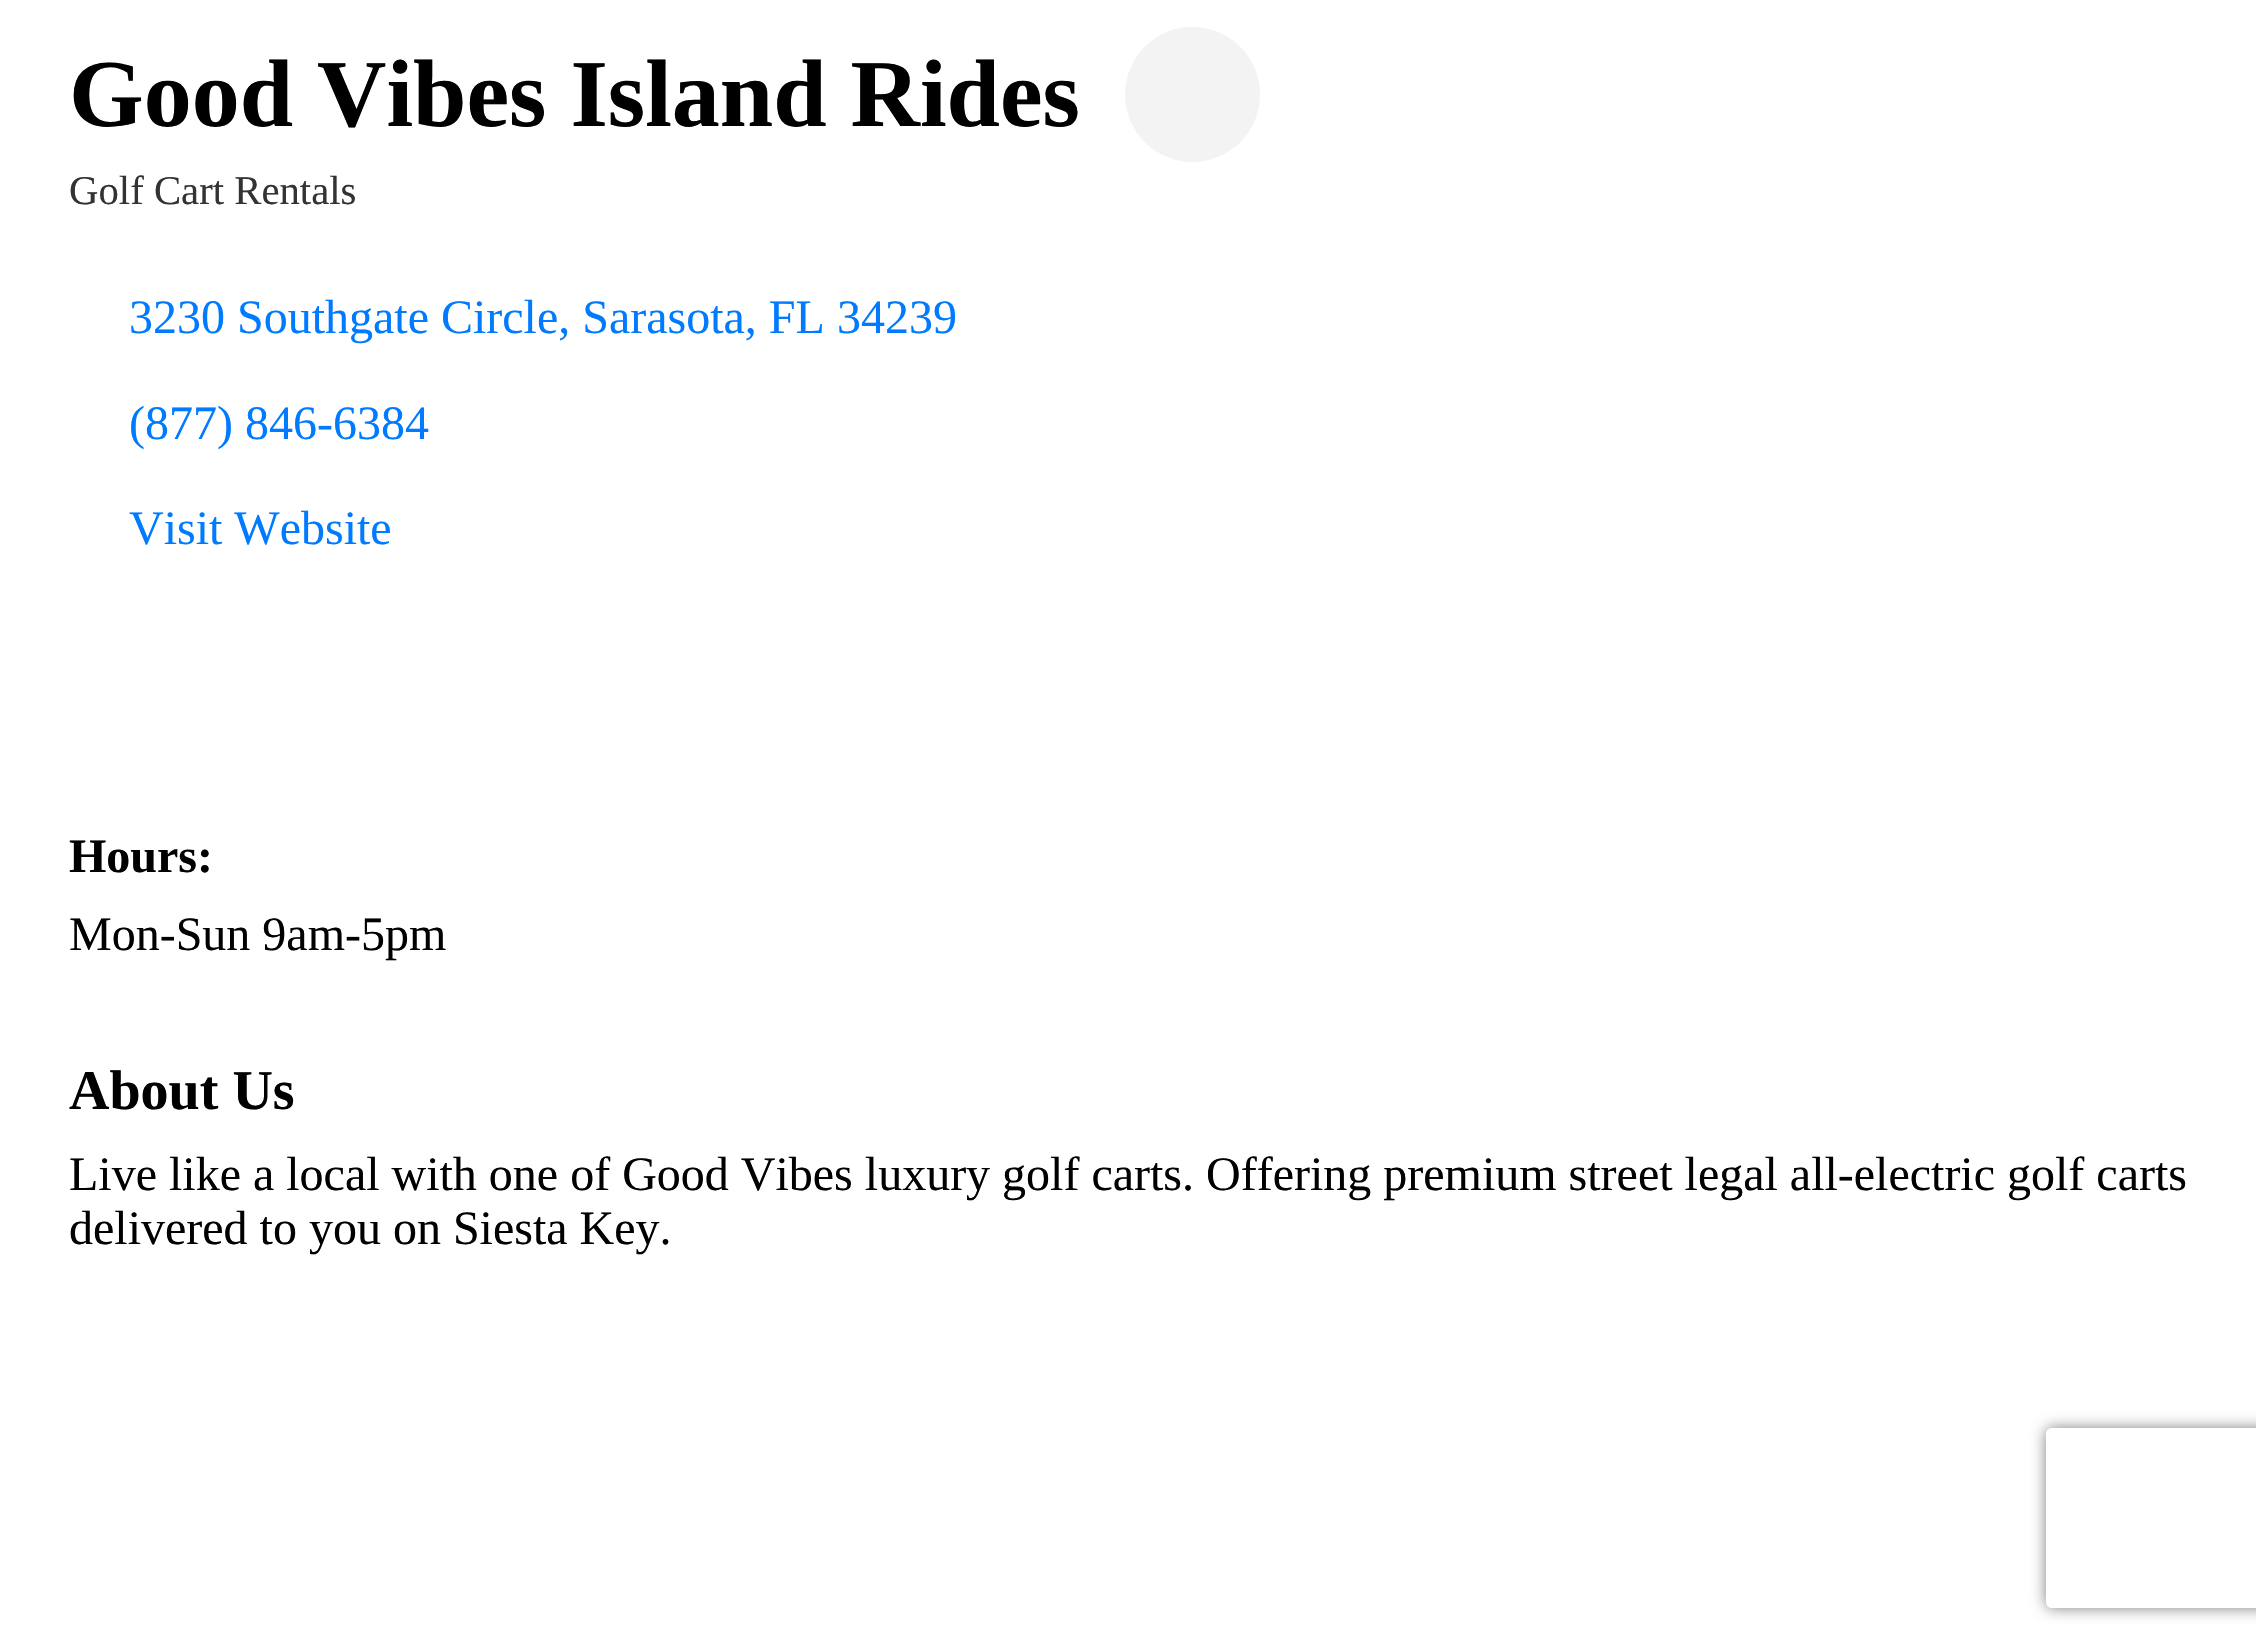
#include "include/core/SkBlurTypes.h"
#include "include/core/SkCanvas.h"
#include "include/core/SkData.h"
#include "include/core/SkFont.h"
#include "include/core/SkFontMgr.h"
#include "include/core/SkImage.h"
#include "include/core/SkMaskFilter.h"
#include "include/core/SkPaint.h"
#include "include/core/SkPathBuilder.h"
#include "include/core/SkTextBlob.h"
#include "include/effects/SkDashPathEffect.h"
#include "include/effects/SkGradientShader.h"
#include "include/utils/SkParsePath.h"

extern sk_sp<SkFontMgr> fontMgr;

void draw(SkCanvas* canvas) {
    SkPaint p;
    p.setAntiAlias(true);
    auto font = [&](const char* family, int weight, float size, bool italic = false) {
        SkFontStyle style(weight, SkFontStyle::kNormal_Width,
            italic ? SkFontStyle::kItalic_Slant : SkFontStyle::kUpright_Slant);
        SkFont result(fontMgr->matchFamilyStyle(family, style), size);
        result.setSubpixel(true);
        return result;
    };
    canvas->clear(0xFFFFFFFF);
    auto font1 = font("Liberation Serif", 700, 96);
    p.setColor(0xFF000000);
    canvas->drawString("Good Vibes Island Rides", 69, 126, font1, p);
    p.setColor(0xFFF3F3F3);
    canvas->drawCircle(1192.5f, 94.5f, 67.5f, p);
    auto font2 = font("Liberation Serif", 400, 40.75f);
    p.setColor(0xFF333333);
    canvas->drawString("Golf Cart Rentals", 69, 204, font2, p);
    auto font3 = font("Liberation Serif", 400, 48);
    p.setColor(0xFF007BFF);
    {
        const struct { const char* s; float x, y; } items[] = {
            {"3230 Southgate Circle, Sarasota, FL 34239", 129, 333},
            {"(877) 846-6384", 129, 439},
            {"Visit Website", 129, 544},
        };
        for (auto [s, x, y] : items) {
            canvas->drawString(s, x, y, font3, p);
        }
    }
    auto font4 = font("Liberation Serif", 700, 48);
    p.setColor(0xFF000000);
    canvas->drawString("Hours:", 69, 872, font4, p);
    canvas->drawString("Mon-Sun 9am-5pm", 69, 950, font3, p);
    auto font5 = font("Liberation Serif", 700, 56);
    canvas->drawString("About Us", 69, 1109, font5, p);
    canvas->drawString("Live like a local with one of Good Vibes luxury golf carts. Offering premium street legal all-electric golf carts", 69, 1190, font3, p);
    canvas->drawString("delivered to you on Siesta Key.", 69, 1244, font3, p);
    canvas->save();
    canvas->clipPath(SkPathBuilder(SkPathFillType::kEvenOdd).moveTo(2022, 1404).lineTo(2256, 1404).lineTo(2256, 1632).lineTo(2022, 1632).close().moveTo(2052, 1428).lineTo(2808, 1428).cubicTo(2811.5f, 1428, 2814, 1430.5f, 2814, 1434).lineTo(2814, 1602).cubicTo(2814, 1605.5f, 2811.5f, 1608, 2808, 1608).lineTo(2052, 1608).cubicTo(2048.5f, 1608, 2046, 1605.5f, 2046, 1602).lineTo(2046, 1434).cubicTo(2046, 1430.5f, 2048.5f, 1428, 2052, 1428).close().detach(), true);
    p.setColor(0xFF808080);
    p.setMaskFilter(SkMaskFilter::MakeBlur(kNormal_SkBlurStyle, 7.5f));
    canvas->drawRoundRect(SkRect::MakeLTRB(2046, 1428, 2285, 1608), 6, 6, p);
    p.setMaskFilter(nullptr);
    canvas->restore();
}
